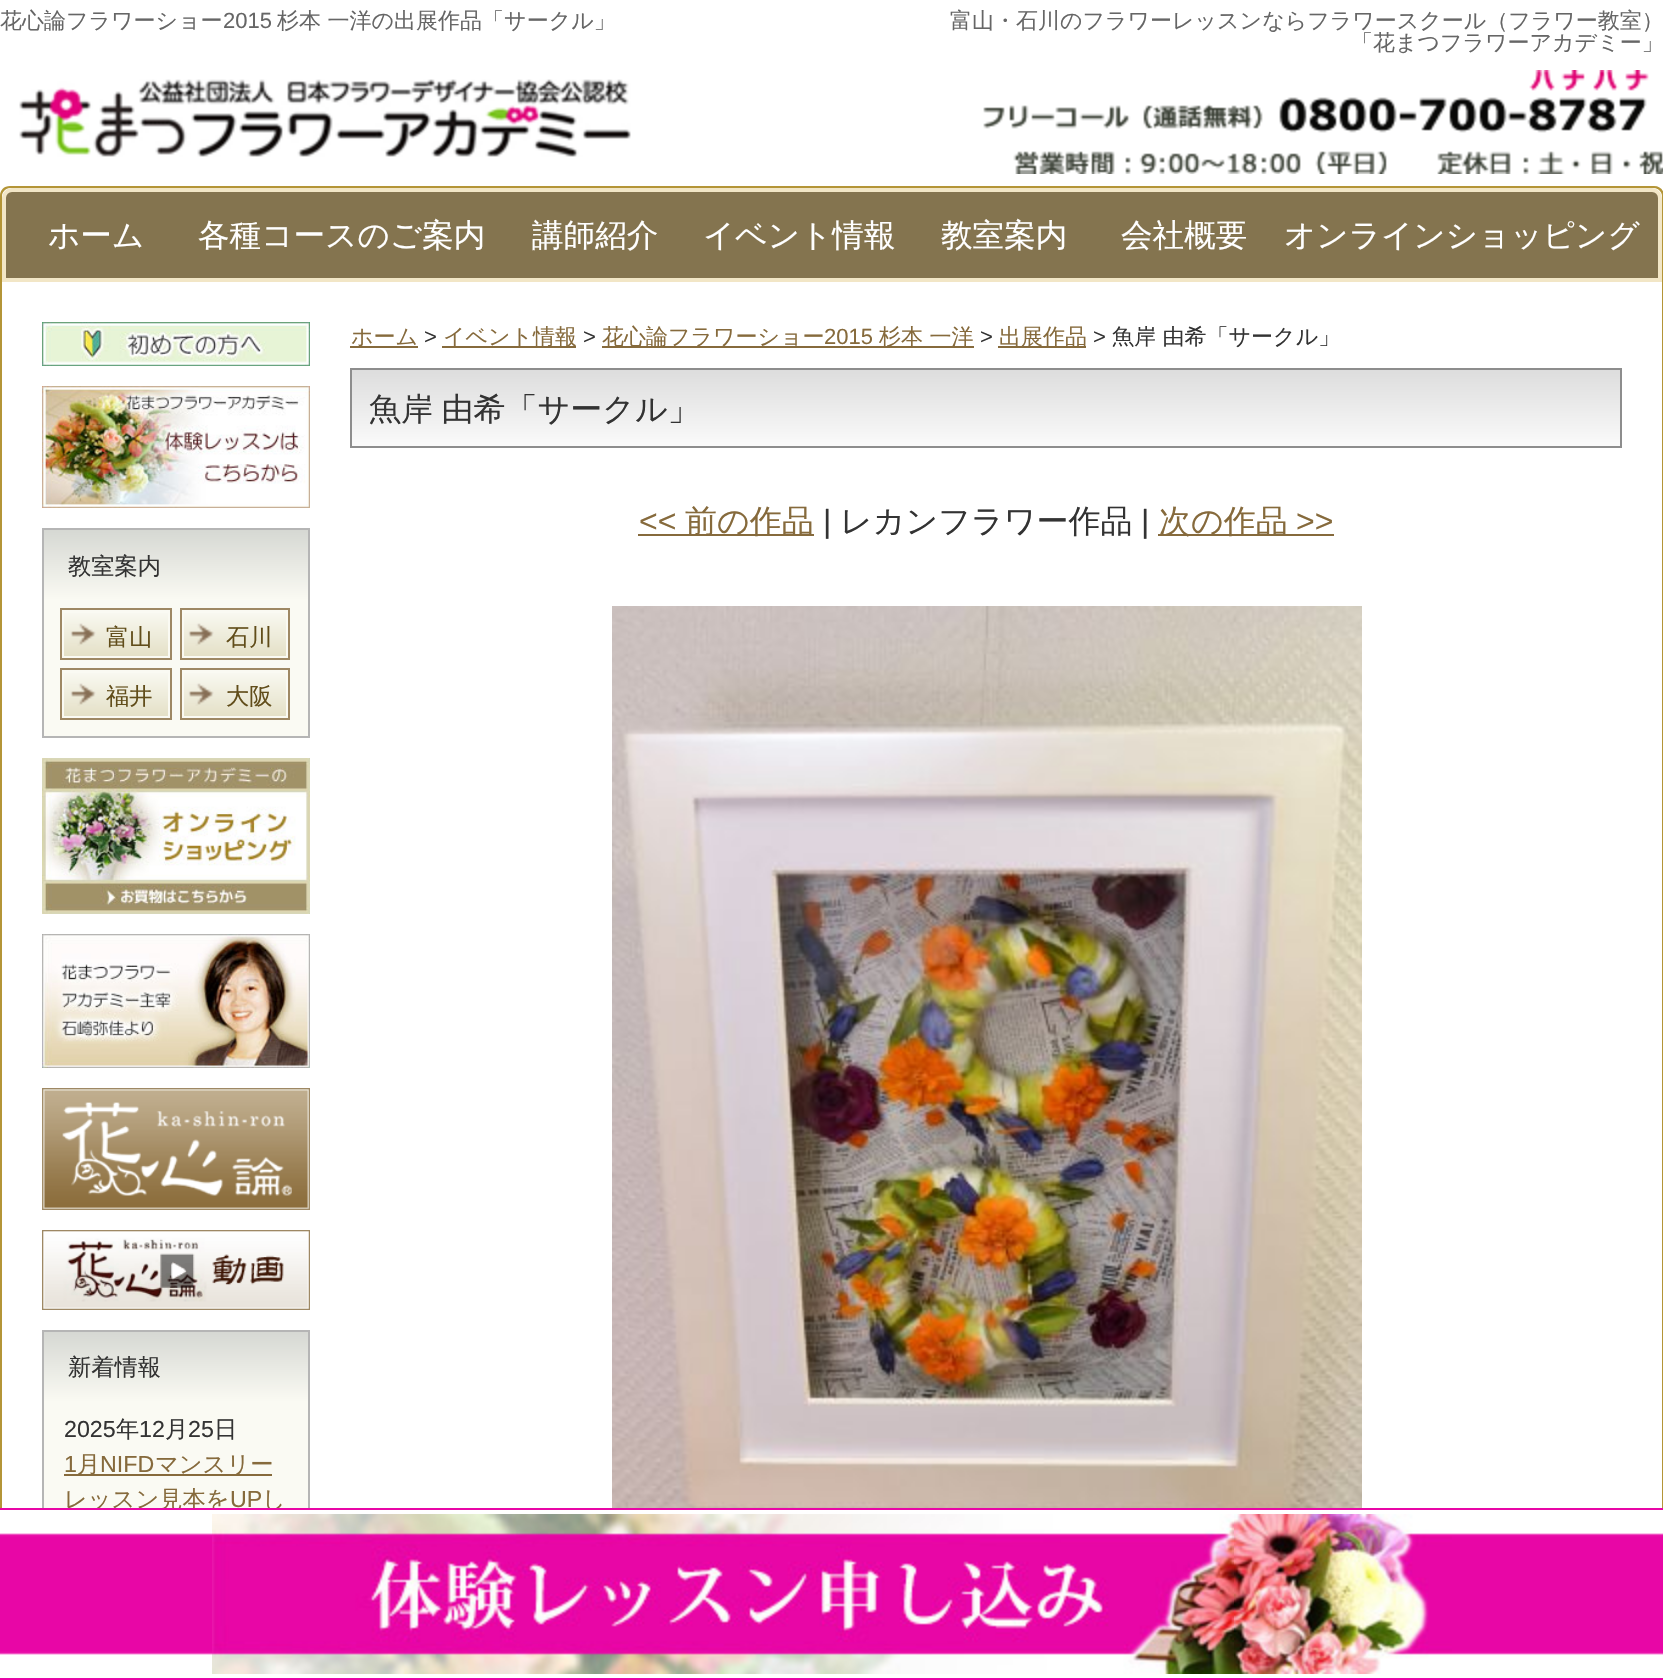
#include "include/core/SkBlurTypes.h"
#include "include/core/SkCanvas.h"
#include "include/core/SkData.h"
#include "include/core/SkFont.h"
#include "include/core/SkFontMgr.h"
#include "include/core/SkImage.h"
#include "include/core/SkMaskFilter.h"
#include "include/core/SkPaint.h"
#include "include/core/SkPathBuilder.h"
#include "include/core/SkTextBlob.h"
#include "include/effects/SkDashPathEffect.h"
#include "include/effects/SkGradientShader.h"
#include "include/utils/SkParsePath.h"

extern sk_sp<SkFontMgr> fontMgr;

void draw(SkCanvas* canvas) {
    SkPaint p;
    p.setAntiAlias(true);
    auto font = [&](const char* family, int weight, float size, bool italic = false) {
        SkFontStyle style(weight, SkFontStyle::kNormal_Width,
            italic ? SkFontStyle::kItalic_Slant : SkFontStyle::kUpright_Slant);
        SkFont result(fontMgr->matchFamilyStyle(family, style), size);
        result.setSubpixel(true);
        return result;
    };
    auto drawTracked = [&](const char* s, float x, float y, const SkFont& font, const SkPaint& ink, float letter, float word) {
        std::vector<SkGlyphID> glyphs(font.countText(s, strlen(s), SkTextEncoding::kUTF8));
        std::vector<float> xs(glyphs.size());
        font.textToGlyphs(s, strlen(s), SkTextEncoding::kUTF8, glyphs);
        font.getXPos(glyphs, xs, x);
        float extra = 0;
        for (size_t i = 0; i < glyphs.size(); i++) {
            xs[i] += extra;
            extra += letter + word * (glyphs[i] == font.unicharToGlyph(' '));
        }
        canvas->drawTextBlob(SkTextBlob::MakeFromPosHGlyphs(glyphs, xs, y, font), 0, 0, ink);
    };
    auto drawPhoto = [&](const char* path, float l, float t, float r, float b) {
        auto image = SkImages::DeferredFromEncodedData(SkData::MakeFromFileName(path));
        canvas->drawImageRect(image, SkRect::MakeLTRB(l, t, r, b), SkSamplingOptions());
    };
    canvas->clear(0xFFFFFFFF);
    drawPhoto("media/1.png", 0, 0, 1663, 198);
    auto font1 = font("WenQuanYi Zen Hei", 500, 22);
    p.setColor(0xFF666666);
    canvas->drawString("花心論フラワーショー", 0, 28, font1, p);
    auto font2 = font("Liberation Sans", 400, 22);
    canvas->drawString("2015", 223, 28, font2, p);
    canvas->drawString("杉本 一洋の出展作品「サークル」", 277, 28, font1, p);
    drawPhoto("media/2.png", 19, 79, 631, 157);
    canvas->drawString("富山・石川のフラワーレッスンならフラワースクール（フラワー教室）", 950, 28, font1, p);
    canvas->drawString("「花まつフラワーアカデミー」", 1351, 50, font1, p);
    drawPhoto("media/3.png", 983, 70, 1663, 174);
    p.setColor(0xFFB49537);
    canvas->drawPath(SkPathBuilder(SkPathFillType::kEvenOdd).moveTo(10, 186).lineTo(1654, 186).cubicTo(1660, 186, 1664, 190, 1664, 196).lineTo(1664, 282).lineTo(0, 282).lineTo(0, 196).cubicTo(0, 190, 4, 186, 10, 186).close().moveTo(10, 188).lineTo(1654, 188).cubicTo(1658, 188, 1662, 192, 1662, 196).lineTo(1662, 282).lineTo(2, 282).lineTo(2, 196).cubicTo(2, 192, 6, 188, 10, 188).close().detach(), p);
    p.setColor(0xFF84744F);
    canvas->drawPath(SkPathBuilder().moveTo(12, 190).lineTo(1652, 190).cubicTo(1656.5f, 190, 1660, 193.5f, 1660, 198).lineTo(1660, 280).lineTo(4, 280).lineTo(4, 198).cubicTo(4, 193.5f, 7.5f, 190, 12, 190).close().detach(), p);
    p.setStyle(SkPaint::kStroke_Style);
    p.setStrokeWidth(4);
    p.setColor(0xFFF2E6C6);
    canvas->drawPath(SkPathBuilder().moveTo(12, 190).lineTo(1652, 190).cubicTo(1656.5f, 190, 1660, 193.5f, 1660, 198).lineTo(1660, 280).lineTo(4, 280).lineTo(4, 198).cubicTo(4, 193.5f, 7.5f, 190, 12, 190).close().detach(), p);
    auto font3 = font("WenQuanYi Zen Hei", 500, 31.6f);
    p.setStyle(SkPaint::kFill_Style);
    p.setColor(0xFFFFFFFF);
    {
        const struct { const char* s; float x, y; } items[] = {
            {"ホーム", 48, 246},
            {"各種コースのご案内", 198, 246},
            {"講師紹介", 532, 246},
            {"イベント情報", 703, 246},
            {"教室案内", 941, 246},
            {"会社概要", 1121, 246},
            {"オンラインショッピング", 1284, 246},
        };
        for (auto [s, x, y] : items) {
            canvas->drawString(s, x, y, font3, p);
        }
    }
    {
        const struct { float l, t, r, b; SkColor color; } items[] = {
            {1662, 282, 1663, 1508, 0xFFB49537},
            {0, 282, 2, 1508, 0xFFB49537},
            {350, 346, 418, 348, 0xFF866A3C},
        };
        for (auto [l, t, r, b, color] : items) {
            p.setColor(color);
            canvas->drawRect(SkRect::MakeLTRB(l, t, r, b), p);
        }
    }
    canvas->drawString("ホーム", 351, 344, font1, p);
    p.setColor(0xFF333333);
    canvas->drawString(">", 424, 344, font2, p);
    p.setColor(0xFF866A3C);
    canvas->drawRect(SkRect::MakeLTRB(442, 346, 576, 348), p);
    canvas->drawString("イベント情報", 443, 344, font1, p);
    p.setColor(0xFF333333);
    canvas->drawString(">", 583, 344, font2, p);
    p.setColor(0xFF866A3C);
    canvas->drawRect(SkRect::MakeLTRB(602, 346, 974, 348), p);
    canvas->drawString("花心論フラワーショー", 602, 344, font1, p);
    canvas->drawString("2015", 824, 344, font2, p);
    canvas->drawString("杉本 一洋", 879, 344, font1, p);
    p.setColor(0xFF333333);
    canvas->drawString(">", 980, 344, font2, p);
    p.setColor(0xFF866A3C);
    canvas->drawRect(SkRect::MakeLTRB(998, 346, 1086, 348), p);
    canvas->drawString("出展作品", 999, 344, font1, p);
    p.setColor(0xFF333333);
    canvas->drawString(">", 1093, 344, font2, p);
    canvas->drawString("魚岸 由希「サークル」", 1112, 344, font1, p);
    {
        const SkColor colors[] = {0xFFDDDDDD, 0xFFFAFAFA};
        const float stops[] = {0, 1};
        const SkPoint ends[] = {{986, 370}, {986, 446}};
        p.setShader(SkGradientShader::MakeLinear(ends, colors, stops, 2, SkTileMode::kClamp));
        p.setAlpha(255);
    }
    canvas->drawRect(SkRect::MakeLTRB(352, 370, 1620, 446), p);
    p.setStyle(SkPaint::kStroke_Style);
    p.setStrokeWidth(2);
    p.setShader(nullptr);
    p.setColor(0xFF8D8D8D);
    canvas->drawRect(SkRect::MakeLTRB(351, 369, 1621, 447), p);
    auto font4 = font("WenQuanYi Zen Hei", 500, 32);
    p.setStyle(SkPaint::kFill_Style);
    p.setColor(0xFF333333);
    drawTracked("魚岸 由希「サークル」", 369, 420, font4, p, 0, -1);
    auto font5 = font("Liberation Sans", 400, 32);
    p.setColor(0xFF866A3C);
    canvas->drawString("<<", 639, 532, font5, p);
    canvas->drawRect(SkRect::MakeLTRB(638, 534, 814, 536), p);
    canvas->drawString("前の作品", 685, 532, font4, p);
    p.setColor(0xFF333333);
    canvas->drawString("|", 823, 532, font5, p);
    canvas->drawString("レカンフラワー作品", 840, 532, font4, p);
    canvas->drawString("|", 1141, 532, font5, p);
    p.setColor(0xFF866A3C);
    canvas->drawRect(SkRect::MakeLTRB(1158, 534, 1334, 536), p);
    canvas->drawString("次の作品", 1159, 532, font4, p);
    canvas->drawString(">>", 1296, 532, font5, p);
    drawPhoto("media/4.png", 612, 606, 1362, 1508);
    drawPhoto("media/5.png", 42, 322, 310, 366);
    drawPhoto("media/6.png", 42, 386, 310, 508);
    p.setColor(0xFFFAFAF3);
    canvas->drawRect(SkRect::MakeLTRB(44, 600, 308, 736), p);
    p.setStyle(SkPaint::kStroke_Style);
    p.setColor(0xFFB5B5B5);
    canvas->drawRect(SkRect::MakeLTRB(43, 529, 309, 737), p);
    p.setStyle(SkPaint::kFill_Style);
    {
        const SkColor colors[] = {0xFFD6D8D3, 0xFFFAFAF3};
        const float stops[] = {0, 1};
        const SkPoint ends[] = {{176, 530}, {176, 600}};
        p.setShader(SkGradientShader::MakeLinear(ends, colors, stops, 2, SkTileMode::kClamp));
        p.setAlpha(255);
    }
    canvas->drawRect(SkRect::MakeLTRB(44, 530, 308, 600), p);
    auto font6 = font("WenQuanYi Zen Hei", 500, 23.25f);
    p.setShader(nullptr);
    p.setColor(0xFF333333);
    canvas->drawString("教室案内", 68, 574, font6, p);
    {
        const SkColor colors[] = {0xFFFAFAF3, 0xFFE3DFC5};
        const float stops[] = {0, 1};
        const SkPoint ends[] = {{116, 610}, {116, 658}};
        p.setShader(SkGradientShader::MakeLinear(ends, colors, stops, 2, SkTileMode::kClamp));
        p.setAlpha(255);
    }
    canvas->drawRect(SkRect::MakeLTRB(64, 613, 168, 656), p);
    p.setStyle(SkPaint::kStroke_Style);
    p.setShader(nullptr);
    p.setColor(0xFF9E8864);
    canvas->drawRect(SkRect::MakeLTRB(61, 609, 171, 659), p);
    drawPhoto("media/7.png", 70, 623, 96, 646);
    p.setStyle(SkPaint::kFill_Style);
    p.setColor(0xFF614D1A);
    canvas->drawString("富山", 106, 645, font6, p);
    {
        const SkColor colors[] = {0xFFFAFAF3, 0xFFE3DFC5};
        const float stops[] = {0, 1};
        const SkPoint ends[] = {{235, 610}, {235, 658}};
        p.setShader(SkGradientShader::MakeLinear(ends, colors, stops, 2, SkTileMode::kClamp));
        p.setAlpha(255);
    }
    canvas->drawRect(SkRect::MakeLTRB(184, 613, 286, 656), p);
    p.setStyle(SkPaint::kStroke_Style);
    p.setShader(nullptr);
    p.setColor(0xFF9E8864);
    canvas->drawRect(SkRect::MakeLTRB(181, 609, 289, 659), p);
    drawPhoto("media/7.png", 188, 623, 214, 646);
    p.setStyle(SkPaint::kFill_Style);
    p.setColor(0xFF614D1A);
    canvas->drawString("石川", 226, 645, font6, p);
    {
        const SkColor colors[] = {0xFFFAFAF3, 0xFFE3DFC5};
        const float stops[] = {0, 1};
        const SkPoint ends[] = {{116, 670}, {116, 718}};
        p.setShader(SkGradientShader::MakeLinear(ends, colors, stops, 2, SkTileMode::kClamp));
        p.setAlpha(255);
    }
    canvas->drawRect(SkRect::MakeLTRB(64, 673, 168, 716), p);
    p.setStyle(SkPaint::kStroke_Style);
    p.setShader(nullptr);
    p.setColor(0xFF9E8864);
    canvas->drawRect(SkRect::MakeLTRB(61, 669, 171, 719), p);
    drawPhoto("media/7.png", 70, 683, 96, 706);
    p.setStyle(SkPaint::kFill_Style);
    p.setColor(0xFF614D1A);
    canvas->drawString("福井", 106, 704, font6, p);
    {
        const SkColor colors[] = {0xFFFAFAF3, 0xFFE3DFC5};
        const float stops[] = {0, 1};
        const SkPoint ends[] = {{235, 670}, {235, 718}};
        p.setShader(SkGradientShader::MakeLinear(ends, colors, stops, 2, SkTileMode::kClamp));
        p.setAlpha(255);
    }
    canvas->drawRect(SkRect::MakeLTRB(184, 673, 286, 716), p);
    p.setStyle(SkPaint::kStroke_Style);
    p.setShader(nullptr);
    p.setColor(0xFF9E8864);
    canvas->drawRect(SkRect::MakeLTRB(181, 669, 289, 719), p);
    drawPhoto("media/7.png", 188, 683, 214, 706);
    p.setStyle(SkPaint::kFill_Style);
    p.setColor(0xFF614D1A);
    canvas->drawString("大阪", 226, 704, font6, p);
    drawPhoto("media/8.png", 42, 758, 310, 914);
    drawPhoto("media/9.png", 42, 934, 310, 1068);
    drawPhoto("media/10.png", 42, 1088, 310, 1210);
    drawPhoto("media/11.png", 42, 1230, 310, 1310);
    p.setColor(0xFFFAFAF3);
    canvas->drawRect(SkRect::MakeLTRB(44, 1402, 308, 1508), p);
    p.setStyle(SkPaint::kStroke_Style);
    p.setColor(0xFFB5B5B5);
    canvas->drawRect(SkRect::MakeLTRB(43, 1331, 309, 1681), p);
    p.setStyle(SkPaint::kFill_Style);
    {
        const SkColor colors[] = {0xFFD6D8D3, 0xFFFAFAF3};
        const float stops[] = {0, 1};
        const SkPoint ends[] = {{176, 1332}, {176, 1402}};
        p.setShader(SkGradientShader::MakeLinear(ends, colors, stops, 2, SkTileMode::kClamp));
        p.setAlpha(255);
    }
    canvas->drawRect(SkRect::MakeLTRB(44, 1332, 308, 1402), p);
    p.setShader(nullptr);
    p.setColor(0xFF333333);
    canvas->drawString("新着情報", 68, 1375, font6, p);
    auto font7 = font("Liberation Sans", 400, 23.25f);
    canvas->drawString("2025", 64, 1437, font7, p);
    canvas->drawString("年", 116, 1437, font6, p);
    canvas->drawString("12", 139, 1437, font7, p);
    canvas->drawString("月", 165, 1437, font6, p);
    canvas->drawString("25", 188, 1437, font7, p);
    canvas->drawString("日", 214, 1437, font6, p);
    p.setColor(0xFF866A3C);
    canvas->drawString("1", 64, 1472, font7, p);
    canvas->drawRect(SkRect::MakeLTRB(64, 1474, 272, 1476), p);
    canvas->drawString("月", 77, 1472, font6, p);
    canvas->drawString("NIFD", 100, 1472, font7, p);
    canvas->drawString("マンスリー", 155, 1472, font6, p);
    canvas->drawString("レッスン見本を", 64, 1507, font6, p);
    canvas->drawString("UP", 230, 1507, font7, p);
    canvas->drawString("し", 262, 1507, font6, p);
    p.setColor(0xFFE806A6);
    canvas->drawRect(SkRect::MakeLTRB(0, 1508, 1663, 1510), p);
    canvas->drawRect(SkRect::MakeLTRB(0, 1678, 1663, 1680), p);
    drawPhoto("media/12.png", 0, 1514, 1663, 1674);
    p.setColor(0xFFFFFFFF);
    canvas->drawRect(SkRect::MakeLTRB(42, 1510, 310, 1514), p);
    canvas->drawRect(SkRect::MakeLTRB(42, 1674, 310, 1678), p);
    drawPhoto("media/13.png", 212, 1514, 1452, 1674);
}
